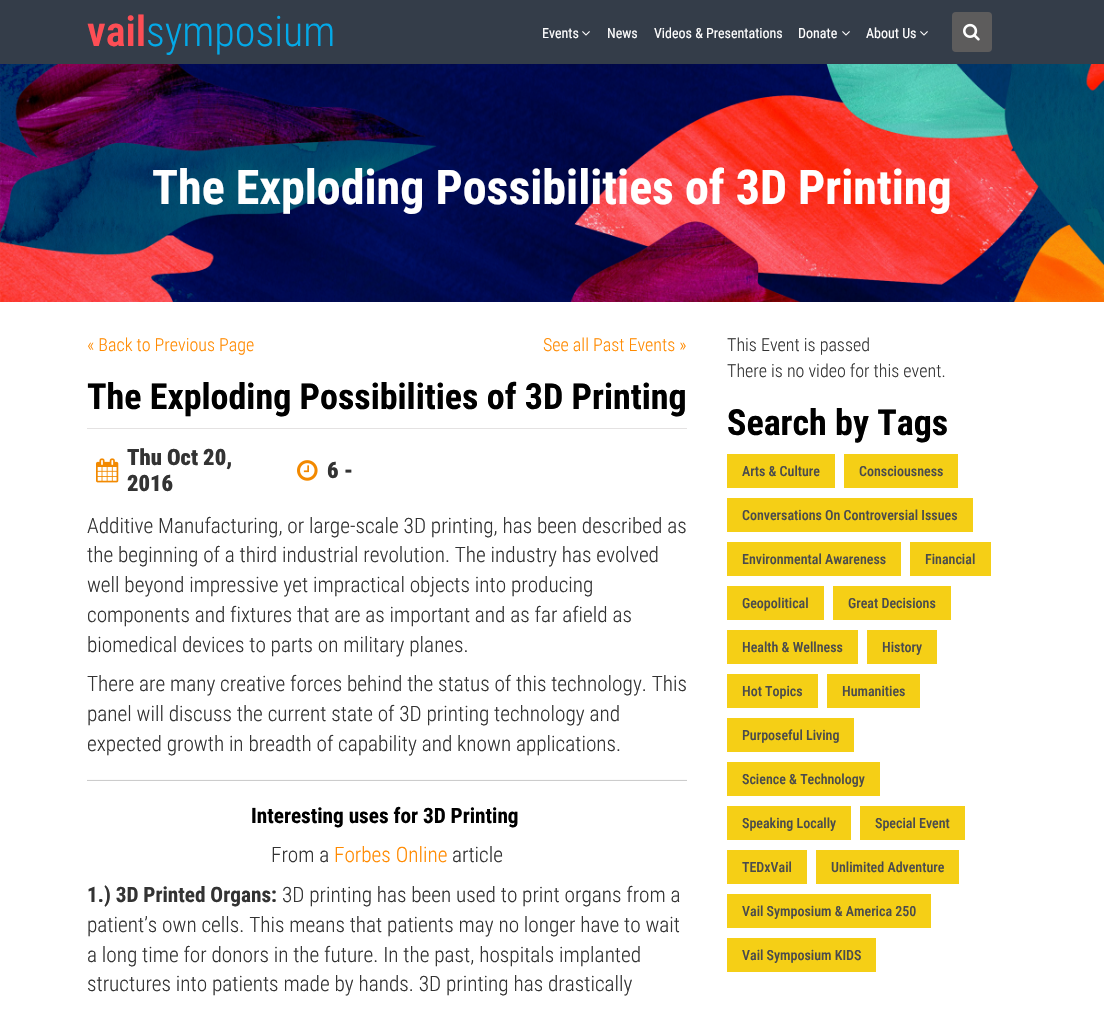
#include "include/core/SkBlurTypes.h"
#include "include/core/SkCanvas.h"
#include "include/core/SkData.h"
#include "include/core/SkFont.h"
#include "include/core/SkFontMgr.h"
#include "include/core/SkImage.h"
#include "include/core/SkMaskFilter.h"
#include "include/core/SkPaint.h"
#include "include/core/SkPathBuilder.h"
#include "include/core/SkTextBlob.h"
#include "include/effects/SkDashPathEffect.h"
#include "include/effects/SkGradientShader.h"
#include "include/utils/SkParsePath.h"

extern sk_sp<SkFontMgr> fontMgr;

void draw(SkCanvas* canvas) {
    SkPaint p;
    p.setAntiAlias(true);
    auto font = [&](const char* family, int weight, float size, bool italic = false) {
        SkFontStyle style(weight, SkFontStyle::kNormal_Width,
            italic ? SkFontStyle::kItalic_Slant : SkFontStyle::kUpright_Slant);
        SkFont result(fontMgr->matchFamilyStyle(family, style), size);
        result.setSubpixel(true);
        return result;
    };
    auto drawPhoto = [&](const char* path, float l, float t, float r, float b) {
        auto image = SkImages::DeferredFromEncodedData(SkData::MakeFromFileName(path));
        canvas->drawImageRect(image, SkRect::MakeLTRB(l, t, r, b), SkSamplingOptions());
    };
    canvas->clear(0xFFFFFFFF);
    p.setColor(0xFF343D49);
    canvas->drawRect(SkRect::MakeLTRB(0, 0, 1104, 64), p);
    auto font1 = font("Roboto Condensed", 600, 42);
    p.setColor(0xFFFD4E55);
    canvas->drawString("vail", 87, 46, font1, p);
    auto font2 = font("Roboto Condensed", 300, 42);
    p.setColor(0xFF03A9E8);
    canvas->drawString("symposium", 146, 46, font2, p);
    auto font3 = font("Roboto Condensed", 400, 14);
    p.setColor(0xFFFFFFFF);
    canvas->drawString("Events", 542, 38, font3, p);
    drawPhoto("media/1.png", 582, 31, 590, 36);
    {
        const struct { const char* s; float x, y; } items[] = {
            {"News", 607, 38},
            {"Videos & Presentations", 654, 38},
            {"Donate", 798, 38},
        };
        for (auto [s, x, y] : items) {
            canvas->drawString(s, x, y, font3, p);
        }
    }
    drawPhoto("media/1.png", 842, 31, 850, 36);
    canvas->drawString("About Us", 866, 38, font3, p);
    drawPhoto("media/1.png", 920, 31, 928, 36);
    p.setColor(0xFF5D5C5C);
    canvas->drawRoundRect(SkRect::MakeLTRB(952, 12, 992, 52), 4, 4, p);
    drawPhoto("media/2.png", 963, 23, 980, 41);
    drawPhoto("media/3.png", 0, 64, 1104, 302);
    auto font4 = font("Roboto Condensed", 700, 48);
    p.setColor(0xFFFFFFFF);
    canvas->drawString("The Exploding Possibilities of 3D Printing", 152, 204, font4, p);
    auto font5 = font("Roboto Condensed", 300, 18);
    p.setColor(0xFFFF8A00);
    canvas->drawString("« Back to Previous Page", 87, 351, font5, p);
    canvas->drawString("See all Past Events »", 543, 351, font5, p);
    p.setColor(0xFFE4E2E2);
    canvas->drawRect(SkRect::MakeLTRB(87, 428, 687, 429), p);
    auto font6 = font("Roboto Condensed", 700, 36);
    p.setColor(0xFF000000);
    canvas->drawString("The Exploding Possibilities of 3D Printing", 87, 409, font6, p);
    drawPhoto("media/4.png", 96, 458, 119, 483);
    auto font7 = font("Roboto Condensed", 900, 22.5f);
    p.setColor(0xFF333333);
    canvas->drawString("Thu Oct 20,", 127, 465, font7, p);
    canvas->drawString("2016", 127, 491, font7, p);
    drawPhoto("media/5.png", 297, 460, 318, 481);
    canvas->drawString("6 -", 327, 478, font7, p);
    auto font8 = font("Roboto Condensed", 300, 21.25f);
    {
        const struct { const char* s; float x, y; } items[] = {
            {"Additive Manufacturing, or large-scale 3D printing, has been described as", 87, 533},
            {"the beginning of a third industrial revolution. The industry has evolved", 87, 562},
            {"well beyond impressive yet impractical objects into producing", 87, 592},
            {"components and fixtures that are as important and as far afield as", 87, 622},
            {"biomedical devices to parts on military planes.", 87, 652},
            {"There are many creative forces behind the status of this technology. This", 87, 691},
            {"panel will discuss the current state of 3D printing technology and", 87, 721},
            {"expected growth in breadth of capability and known applications.", 87, 751},
        };
        for (auto [s, x, y] : items) {
            canvas->drawString(s, x, y, font8, p);
        }
    }
    p.setColor(0xFFCCCCCC);
    canvas->drawRect(SkRect::MakeLTRB(87, 780, 687, 781), p);
    p.setColor(0xFFFBFBFB);
    canvas->drawRect(SkRect::MakeLTRB(87, 779, 687, 780), p);
    auto font9 = font("Roboto Condensed", 700, 21.25f);
    p.setColor(0xFF000000);
    canvas->drawString("Interesting uses for 3D Printing", 251, 823, font9, p);
    p.setColor(0xFF333333);
    canvas->drawString("From a", 271, 862, font8, p);
    p.setColor(0xFFFF8A00);
    canvas->drawString("Forbes Online", 334, 862, font8, p);
    p.setColor(0xFF333333);
    canvas->drawString("article", 452, 862, font8, p);
    canvas->drawString("1.) 3D Printed Organs:", 87, 902, font9, p);
    {
        const struct { const char* s; float x, y; } items[] = {
            {"3D printing has been used to print organs from a", 282, 902},
            {"patient’s own cells. This means that patients may no longer have to wait", 87, 932},
            {"a long time for donors in the future. In the past, hospitals implanted", 87, 962},
            {"structures into patients made by hands. 3D printing has drastically", 87, 991},
        };
        for (auto [s, x, y] : items) {
            canvas->drawString(s, x, y, font8, p);
        }
    }
    canvas->drawString("This Event is passed", 727, 351, font5, p);
    canvas->drawString("There is no video for this event.", 727, 377, font5, p);
    p.setColor(0xFF000000);
    canvas->drawString("Search by Tags", 727, 435, font6, p);
    p.setColor(0xFFF5CF16);
    canvas->drawRect(SkRect::MakeLTRB(727, 454, 835, 488), p);
    auto font10 = font("Roboto Condensed", 500, 14);
    p.setColor(0xFF4A4B4C);
    canvas->drawString("Arts & Culture", 742, 476, font10, p);
    p.setColor(0xFFF5CF16);
    canvas->drawRect(SkRect::MakeLTRB(844, 454, 958, 488), p);
    p.setColor(0xFF4A4B4C);
    canvas->drawString("Consciousness", 859, 476, font10, p);
    p.setColor(0xFFF5CF16);
    canvas->drawRect(SkRect::MakeLTRB(727, 498, 973, 532), p);
    p.setColor(0xFF4A4B4C);
    canvas->drawString("Conversations On Controversial Issues", 742, 520, font10, p);
    p.setColor(0xFFF5CF16);
    canvas->drawRect(SkRect::MakeLTRB(727, 542, 901, 576), p);
    p.setColor(0xFF4A4B4C);
    canvas->drawString("Environmental Awareness", 742, 564, font10, p);
    p.setColor(0xFFF5CF16);
    canvas->drawRect(SkRect::MakeLTRB(910, 542, 991, 576), p);
    p.setColor(0xFF4A4B4C);
    canvas->drawString("Financial", 925, 564, font10, p);
    p.setColor(0xFFF5CF16);
    canvas->drawRect(SkRect::MakeLTRB(727, 586, 824, 620), p);
    p.setColor(0xFF4A4B4C);
    canvas->drawString("Geopolitical", 742, 608, font10, p);
    p.setColor(0xFFF5CF16);
    canvas->drawRect(SkRect::MakeLTRB(833, 586, 951, 620), p);
    p.setColor(0xFF4A4B4C);
    canvas->drawString("Great Decisions", 848, 608, font10, p);
    p.setColor(0xFFF5CF16);
    canvas->drawRect(SkRect::MakeLTRB(727, 630, 858, 664), p);
    p.setColor(0xFF4A4B4C);
    canvas->drawString("Health & Wellness", 742, 652, font10, p);
    p.setColor(0xFFF5CF16);
    canvas->drawRect(SkRect::MakeLTRB(867, 630, 937, 664), p);
    p.setColor(0xFF4A4B4C);
    canvas->drawString("History", 882, 652, font10, p);
    p.setColor(0xFFF5CF16);
    canvas->drawRect(SkRect::MakeLTRB(727, 674, 818, 708), p);
    p.setColor(0xFF4A4B4C);
    canvas->drawString("Hot Topics", 742, 696, font10, p);
    p.setColor(0xFFF5CF16);
    canvas->drawRect(SkRect::MakeLTRB(827, 674, 920, 708), p);
    p.setColor(0xFF4A4B4C);
    canvas->drawString("Humanities", 842, 696, font10, p);
    p.setColor(0xFFF5CF16);
    canvas->drawRect(SkRect::MakeLTRB(727, 718, 854, 752), p);
    p.setColor(0xFF4A4B4C);
    canvas->drawString("Purposeful Living", 742, 740, font10, p);
    p.setColor(0xFFF5CF16);
    canvas->drawRect(SkRect::MakeLTRB(727, 762, 880, 796), p);
    p.setColor(0xFF4A4B4C);
    canvas->drawString("Science & Technology", 742, 784, font10, p);
    p.setColor(0xFFF5CF16);
    canvas->drawRect(SkRect::MakeLTRB(727, 806, 851, 840), p);
    p.setColor(0xFF4A4B4C);
    canvas->drawString("Speaking Locally", 742, 828, font10, p);
    p.setColor(0xFFF5CF16);
    canvas->drawRect(SkRect::MakeLTRB(860, 806, 965, 840), p);
    p.setColor(0xFF4A4B4C);
    canvas->drawString("Special Event", 875, 828, font10, p);
    p.setColor(0xFFF5CF16);
    canvas->drawRect(SkRect::MakeLTRB(727, 850, 807, 884), p);
    p.setColor(0xFF4A4B4C);
    canvas->drawString("TEDxVail", 742, 872, font10, p);
    p.setColor(0xFFF5CF16);
    canvas->drawRect(SkRect::MakeLTRB(816, 850, 959, 884), p);
    p.setColor(0xFF4A4B4C);
    canvas->drawString("Unlimited Adventure", 831, 872, font10, p);
    p.setColor(0xFFF5CF16);
    canvas->drawRect(SkRect::MakeLTRB(727, 894, 931, 928), p);
    p.setColor(0xFF4A4B4C);
    canvas->drawString("Vail Symposium & America 250", 742, 916, font10, p);
    p.setColor(0xFFF5CF16);
    canvas->drawRect(SkRect::MakeLTRB(727, 938, 876, 972), p);
    p.setColor(0xFF4A4B4C);
    canvas->drawString("Vail Symposium KIDS", 742, 960, font10, p);
}
